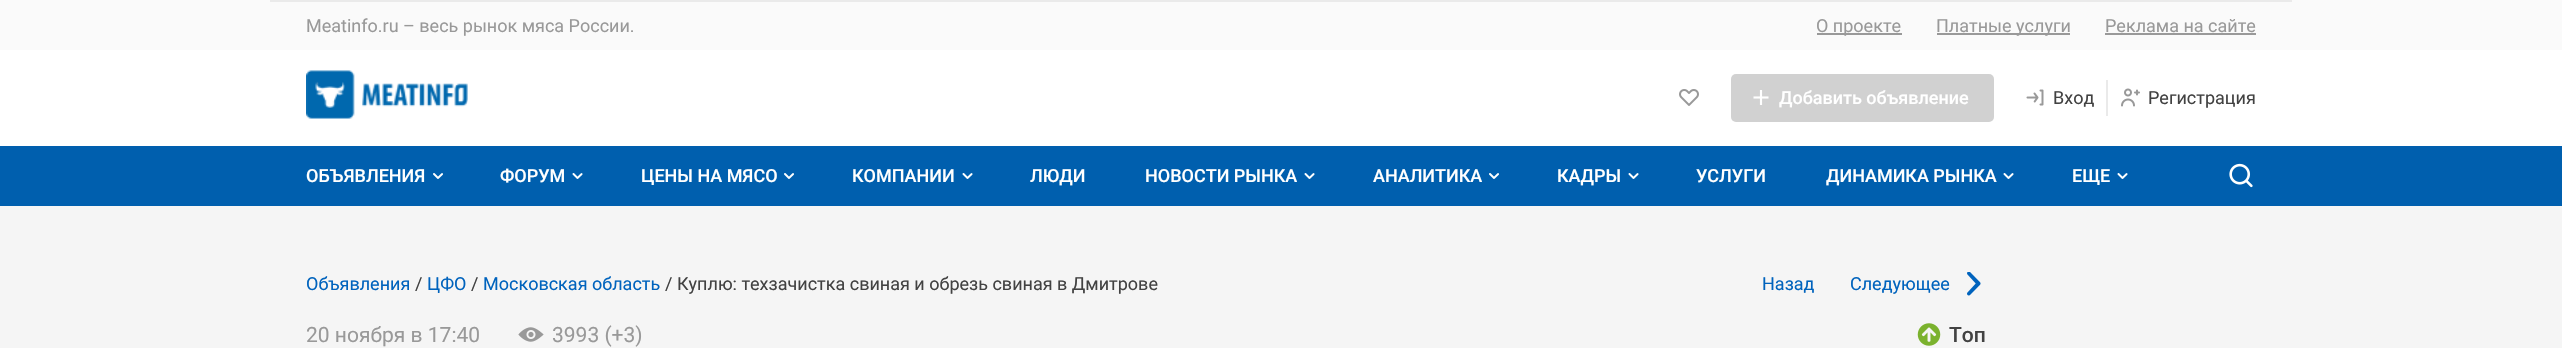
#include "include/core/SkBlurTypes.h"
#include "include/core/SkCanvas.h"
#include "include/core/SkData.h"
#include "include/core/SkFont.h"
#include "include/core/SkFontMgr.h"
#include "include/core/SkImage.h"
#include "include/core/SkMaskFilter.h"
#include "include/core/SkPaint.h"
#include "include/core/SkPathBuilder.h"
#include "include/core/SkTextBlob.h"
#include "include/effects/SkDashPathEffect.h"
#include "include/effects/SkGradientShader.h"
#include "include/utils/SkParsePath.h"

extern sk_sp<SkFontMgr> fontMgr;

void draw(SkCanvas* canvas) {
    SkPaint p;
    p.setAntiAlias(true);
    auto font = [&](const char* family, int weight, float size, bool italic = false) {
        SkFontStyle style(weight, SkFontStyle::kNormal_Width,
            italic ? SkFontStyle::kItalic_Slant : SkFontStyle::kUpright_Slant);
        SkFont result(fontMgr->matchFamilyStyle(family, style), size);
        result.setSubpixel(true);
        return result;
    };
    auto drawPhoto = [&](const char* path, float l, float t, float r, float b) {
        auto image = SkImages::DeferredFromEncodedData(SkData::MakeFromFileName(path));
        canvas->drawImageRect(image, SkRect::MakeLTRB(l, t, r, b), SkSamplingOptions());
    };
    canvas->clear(0xFFFFFFFF);
    p.setColor(0xFFFAFAFA);
    canvas->drawRect(SkRect::MakeLTRB(0, 0, 2562, 50), p);
    p.setColor(0xFFEAEAEA);
    canvas->drawRect(SkRect::MakeLTRB(270, 0, 2292, 2), p);
    auto font1 = font("Roboto", 400, 18);
    p.setColor(0xFF999999);
    canvas->drawString("Meatinfo.ru – весь рынок мяса России.", 306, 32, font1, p);
    canvas->drawRect(SkRect::MakeLTRB(1817, 33, 1902, 35), p);
    canvas->drawString("О проекте", 1816, 32, font1, p);
    canvas->drawRect(SkRect::MakeLTRB(1937, 33, 2070, 35), p);
    canvas->drawString("Платные услуги", 1936, 32, font1, p);
    canvas->drawString("Реклама на сайте", 2105, 32, font1, p);
    canvas->drawRect(SkRect::MakeLTRB(2105, 33, 2256, 35), p);
    drawPhoto("media/1.png", 306, 70, 468, 119);
    drawPhoto("media/2.png", 1679, 89, 1699, 106);
    p.setColor(0xFFD1D1D1);
    canvas->drawRoundRect(SkRect::MakeLTRB(1731, 74, 1994, 122), 5, 5, p);
    drawPhoto("media/3.png", 1753, 90, 1769, 105);
    auto font2 = font("Roboto", 500, 18);
    p.setColor(0xFFFFFFFF);
    canvas->drawString("Добавить объявление", 1779, 104, font2, p);
    drawPhoto("media/4.png", 2026, 89, 2044, 106);
    p.setColor(0xFF424242);
    canvas->drawString("Вход", 2053, 104, font1, p);
    p.setColor(0xFFEAEAEA);
    canvas->drawRect(SkRect::MakeLTRB(2106, 80, 2108, 116), p);
    drawPhoto("media/5.png", 2121, 88, 2140, 107);
    p.setColor(0xFF424242);
    canvas->drawString("Регистрация", 2148, 104, font1, p);
    p.setColor(0xFF005FAE);
    canvas->drawRect(SkRect::MakeLTRB(0, 146, 2562, 206), p);
    p.setColor(0xFFFFFFFF);
    canvas->drawString("ОБЪЯВЛЕНИЯ", 306, 182, font2, p);
    drawPhoto("media/6.png", 433, 173, 443, 179);
    canvas->drawString("ФОРУМ", 500, 182, font2, p);
    drawPhoto("media/7.png", 572, 173, 583, 179);
    canvas->drawString("ЦЕНЫ НА МЯСО", 641, 182, font2, p);
    drawPhoto("media/6.png", 784, 173, 794, 179);
    canvas->drawString("КОМПАНИИ", 852, 182, font2, p);
    drawPhoto("media/7.png", 962, 173, 973, 179);
    canvas->drawString("ЛЮДИ", 1030, 182, font2, p);
    canvas->drawString("НОВОСТИ РЫНКА", 1145, 182, font2, p);
    drawPhoto("media/7.png", 1304, 173, 1315, 179);
    canvas->drawString("АНАЛИТИКА", 1373, 182, font2, p);
    drawPhoto("media/6.png", 1489, 173, 1499, 179);
    canvas->drawString("КАДРЫ", 1557, 182, font2, p);
    drawPhoto("media/7.png", 1628, 173, 1639, 179);
    canvas->drawString("УСЛУГИ", 1696, 182, font2, p);
    canvas->drawString("ДИНАМИКА РЫНКА", 1826, 182, font2, p);
    drawPhoto("media/7.png", 2003, 173, 2014, 179);
    canvas->drawString("ЕЩЕ", 2072, 182, font2, p);
    drawPhoto("media/7.png", 2117, 173, 2128, 179);
    drawPhoto("media/8.png", 2229, 163, 2253, 188);
    p.setColor(0xFFF5F5F5);
    canvas->drawRect(SkRect::MakeLTRB(0, 206, 2562, 348), p);
    p.setColor(0xFF0063BD);
    canvas->drawString("Объявления", 306, 290, font1, p);
    p.setColor(0xFF424242);
    canvas->drawString("/", 415, 290, font1, p);
    p.setColor(0xFF0063BD);
    canvas->drawString("ЦФО", 427, 290, font1, p);
    p.setColor(0xFF424242);
    canvas->drawString("/", 471, 290, font1, p);
    p.setColor(0xFF0063BD);
    canvas->drawString("Московская область", 483, 290, font1, p);
    p.setColor(0xFF424242);
    canvas->drawString("/", 665, 290, font1, p);
    canvas->drawString("Куплю: техзачистка свиная и обрезь свиная в Дмитрове", 677, 290, font1, p);
    p.setColor(0xFF0063BD);
    canvas->drawString("Назад", 1762, 290, font1, p);
    canvas->drawString("Следующее", 1850, 290, font1, p);
    drawPhoto("media/9.png", 1967, 272, 1981, 296);
    auto font3 = font("Roboto", 400, 21);
    p.setColor(0xFF999999);
    canvas->drawString("20 ноября в 17:40", 306, 342, font3, p);
    drawPhoto("media/10.png", 518, 327, 544, 342);
    canvas->drawString("3993 (+3)", 552, 342, font3, p);
    drawPhoto("media/11.png", 1917, 323, 1941, 346);
    auto font4 = font("Roboto", 500, 21);
    p.setColor(0xFF424242);
    canvas->drawString("Топ", 1949, 342, font4, p);
}
